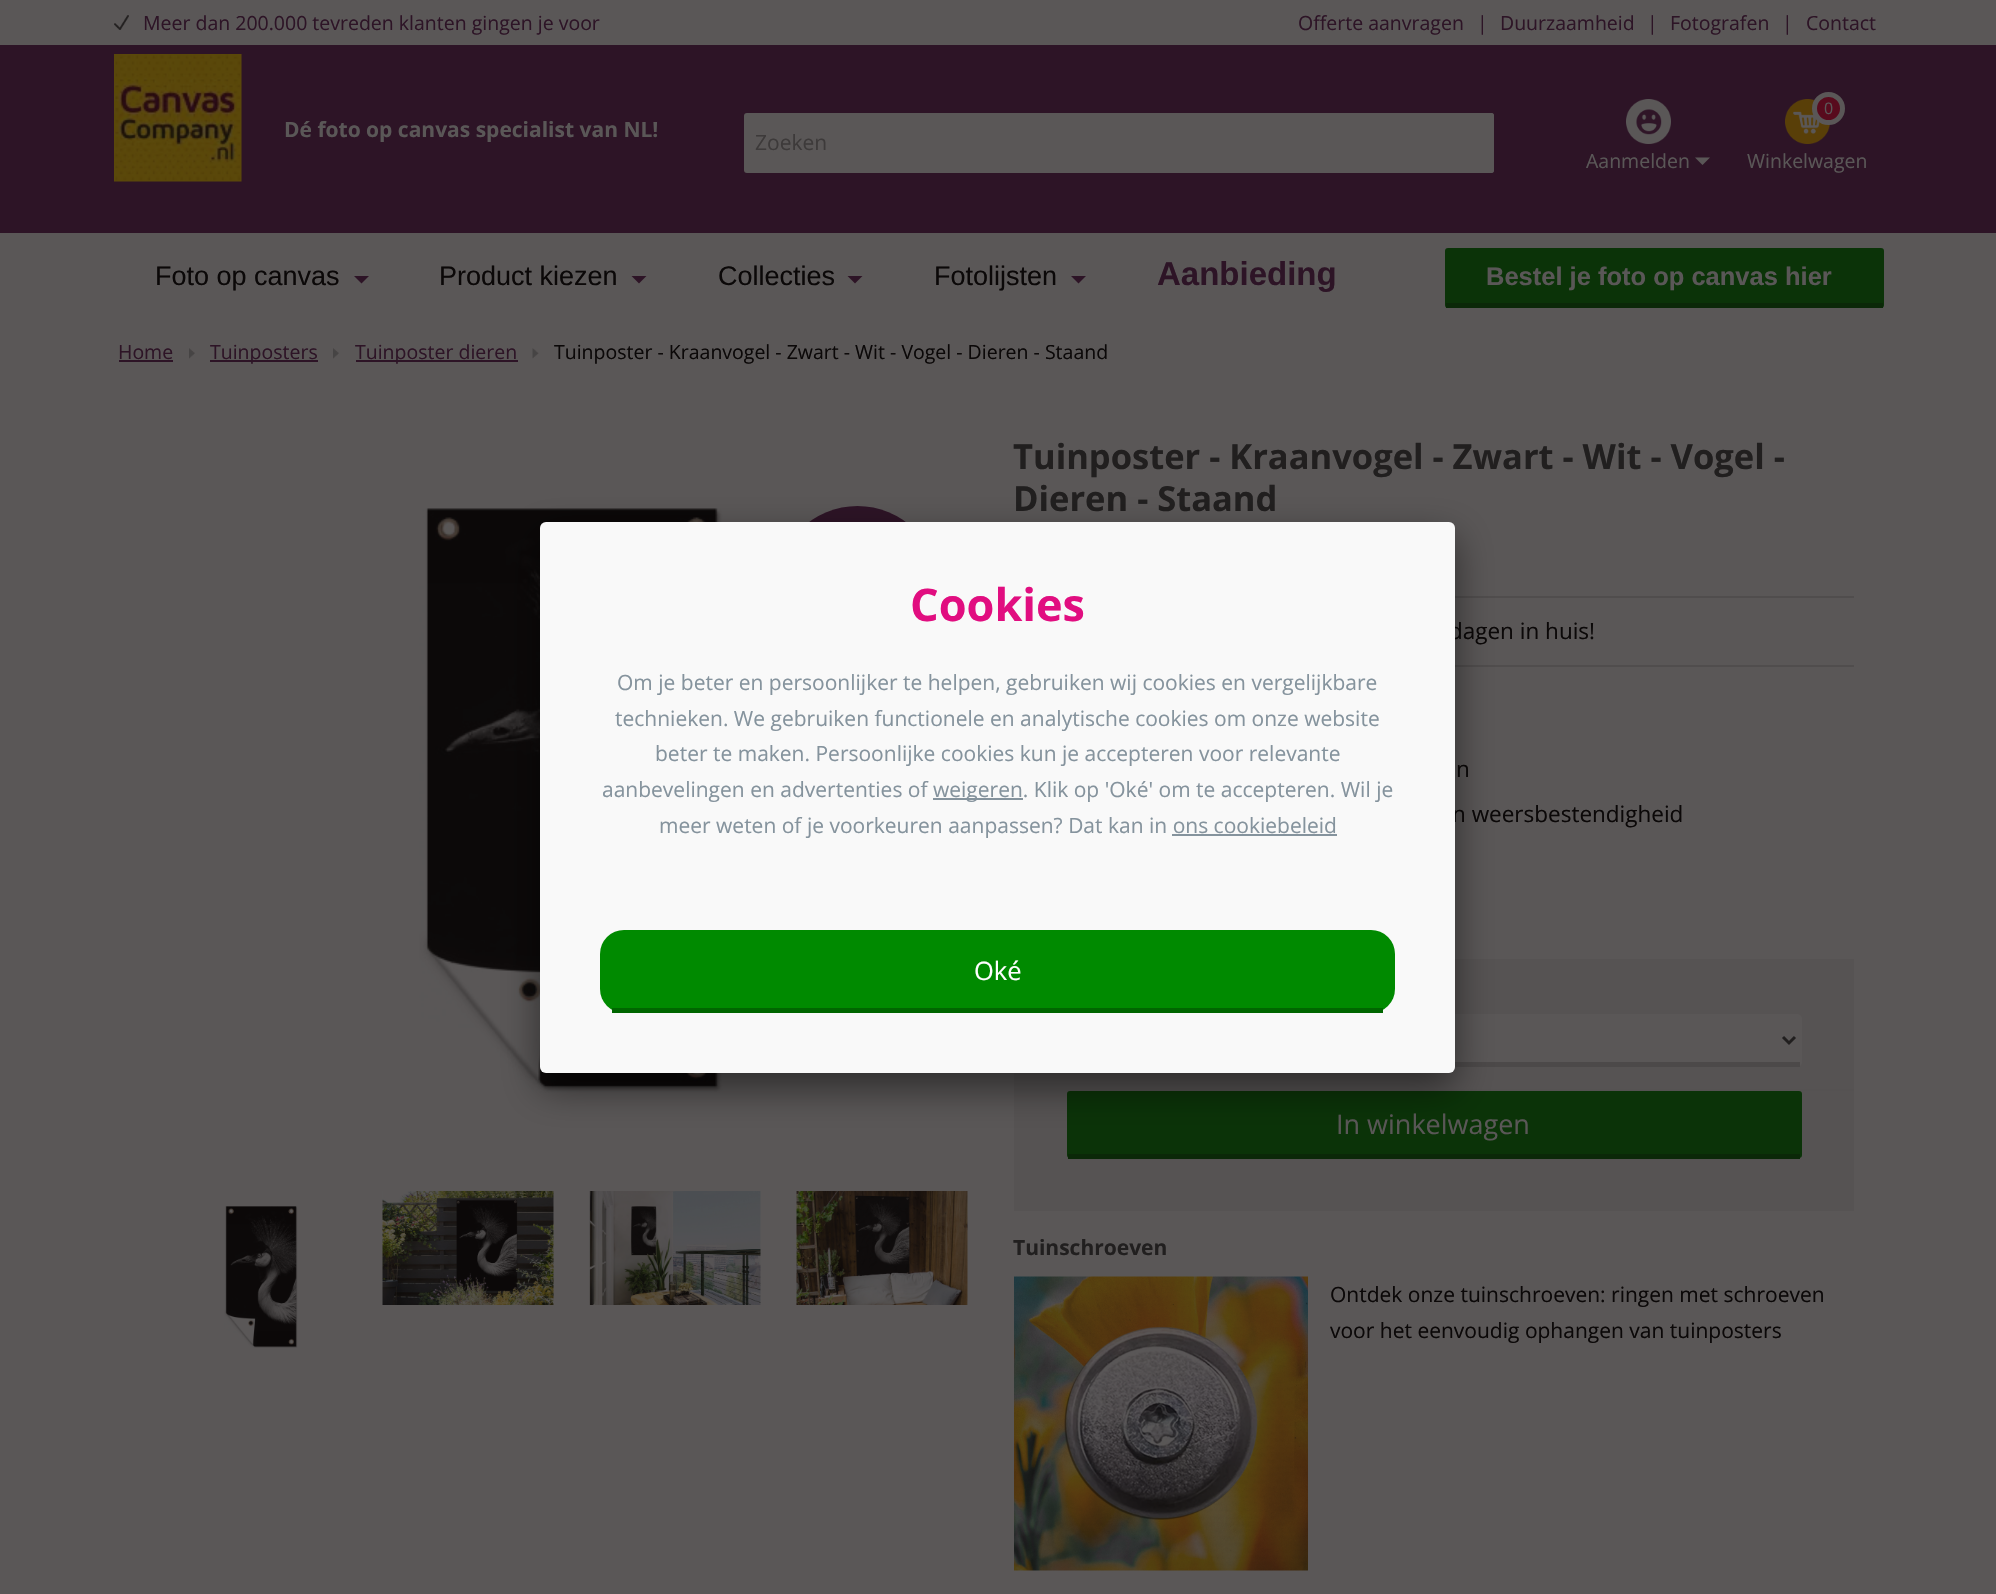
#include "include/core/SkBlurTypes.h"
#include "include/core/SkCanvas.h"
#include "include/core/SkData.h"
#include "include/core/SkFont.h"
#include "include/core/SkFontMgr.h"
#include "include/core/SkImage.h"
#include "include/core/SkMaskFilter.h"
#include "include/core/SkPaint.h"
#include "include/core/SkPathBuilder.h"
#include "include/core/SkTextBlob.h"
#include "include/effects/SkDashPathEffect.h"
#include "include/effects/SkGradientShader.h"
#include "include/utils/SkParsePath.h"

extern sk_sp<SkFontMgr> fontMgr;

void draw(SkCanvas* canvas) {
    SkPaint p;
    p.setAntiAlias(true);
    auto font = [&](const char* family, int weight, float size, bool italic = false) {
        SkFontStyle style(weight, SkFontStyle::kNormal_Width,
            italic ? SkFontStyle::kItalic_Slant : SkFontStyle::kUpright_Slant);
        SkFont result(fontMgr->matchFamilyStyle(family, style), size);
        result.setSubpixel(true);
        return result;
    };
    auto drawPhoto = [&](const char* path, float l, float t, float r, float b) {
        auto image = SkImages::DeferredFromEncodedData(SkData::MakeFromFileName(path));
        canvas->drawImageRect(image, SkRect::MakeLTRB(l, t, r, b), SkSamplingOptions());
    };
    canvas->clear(0xFF5A5757);
    drawPhoto("media/1.png", 114, 15, 129, 30);
    auto font1 = font("Open Sans", 400, 19.5f);
    p.setColor(0xFF2D1426);
    {
        const struct { const char* s; float x, y; } items[] = {
            {"Meer dan 200.000 tevreden klanten gingen je voor", 143, 30},
            {"Offerte aanvragen", 1298, 30},
            {"|", 1477, 30},
            {"Duurzaamheid", 1500, 30},
            {"|", 1647, 30},
            {"Fotografen", 1670, 30},
            {"|", 1782, 30},
            {"Contact", 1806, 30},
        };
        for (auto [s, x, y] : items) {
            canvas->drawString(s, x, y, font1, p);
        }
    }
    canvas->drawRect(SkRect::MakeLTRB(0, 45, 1996, 233), p);
    drawPhoto("media/2.png", 114, 54, 242, 182);
    auto font2 = font("Open Sans", 700, 21);
    p.setColor(0xFF5A5757);
    canvas->drawString("Dé foto op canvas specialist van NL!", 284, 137, font2, p);
    canvas->drawRoundRect(SkRect::MakeLTRB(744, 113, 1494, 173), 3, 3, p);
    auto font3 = font("Open Sans", 400, 21);
    p.setColor(0xFF3D3A3A);
    canvas->drawString("Zoeken", 755, 150, font3, p);
    p.setColor(0xFF5A5757);
    canvas->drawRoundRect(SkRect::MakeLTRB(1419, 113, 1494, 173), 3, 3, p);
    drawPhoto("media/3.png", 1785, 99, 1830, 144);
    p.setColor(0xFF580B1D);
    canvas->drawCircle(1828.5f, 108.5f, 14, p);
    p.setStyle(SkPaint::kStroke_Style);
    p.setStrokeWidth(5);
    p.setColor(0xFF5A5757);
    canvas->drawCircle(1828.5f, 108.5f, 14, p);
    auto font4 = font("Open Sans", 400, 16);
    p.setStyle(SkPaint::kFill_Style);
    canvas->drawString("0", 1824, 114, font4, p);
    canvas->drawString("Winkelwagen", 1747, 168, font1, p);
    drawPhoto("media/4.png", 1626, 99, 1671, 144);
    canvas->drawString("Aanmelden", 1586, 168, font1, p);
    canvas->drawPath(SkPathBuilder().moveTo(1695, 157.5f).lineTo(1710, 157.5f).lineTo(1702.5f, 165).close().detach(), p);
    auto font5 = font("Liberation Sans", 400, 27);
    p.setColor(0xFF0B0808);
    canvas->drawString("Foto op canvas", 155, 285, font5, p);
    p.setColor(0xFF2D1426);
    canvas->drawPath(SkPathBuilder().moveTo(354, 276).lineTo(369, 276).lineTo(361.5f, 283.5f).close().detach(), p);
    p.setColor(0xFF0B0808);
    canvas->drawString("Product kiezen", 439, 285, font5, p);
    p.setColor(0xFF2D1426);
    canvas->drawPath(SkPathBuilder().moveTo(631.5f, 276).lineTo(646.5f, 276).lineTo(639, 283.5f).close().detach(), p);
    p.setColor(0xFF0B0808);
    canvas->drawString("Collecties", 718, 285, font5, p);
    p.setColor(0xFF2D1426);
    canvas->drawPath(SkPathBuilder().moveTo(847.5f, 276).lineTo(862.5f, 276).lineTo(855, 283.5f).close().detach(), p);
    p.setColor(0xFF0B0808);
    canvas->drawString("Fotolijsten", 934, 285, font5, p);
    p.setColor(0xFF2D1426);
    canvas->drawPath(SkPathBuilder().moveTo(1071, 276).lineTo(1086, 276).lineTo(1078.5f, 283.5f).close().detach(), p);
    auto font6 = font("Liberation Sans", 700, 33);
    canvas->drawString("Aanbieding", 1157, 285, font6, p);
    p.setColor(0xFF0B3308);
    canvas->drawRoundRect(SkRect::MakeLTRB(1445, 248, 1884, 308), 3, 3, p);
    p.setColor(0xFF0B2808);
    canvas->drawRect(SkRect::MakeLTRB(1446, 303, 1883, 308), p);
    auto font7 = font("Liberation Sans", 700, 25.5f);
    p.setColor(0xFF5A5757);
    canvas->drawString("Bestel je foto op canvas hier", 1486, 285, font7, p);
    p.setColor(0xFF2D1426);
    canvas->drawString("Home", 118, 359, font1, p);
    canvas->drawRect(SkRect::MakeLTRB(119, 360, 173, 362), p);
    drawPhoto("media/5.png", 189, 348, 195, 359);
    canvas->drawRect(SkRect::MakeLTRB(210, 360, 318, 362), p);
    canvas->drawString("Tuinposters", 210, 359, font1, p);
    drawPhoto("media/6.png", 333, 348, 339, 359);
    canvas->drawRect(SkRect::MakeLTRB(356, 360, 518, 362), p);
    canvas->drawString("Tuinposter dieren", 355, 359, font1, p);
    drawPhoto("media/7.png", 532, 348, 539, 359);
    p.setColor(0xFF0B0808);
    canvas->drawString("Tuinposter - Kraanvogel - Zwart - Wit - Vogel - Dieren - Staand", 554, 359, font1, p);
    auto font8 = font("Open Sans", 700, 34.5f);
    p.setColor(0xFF211F1F);
    canvas->drawString("Tuinposter - Kraanvogel - Zwart - Wit - Vogel -", 1013, 469, font8, p);
    canvas->drawString("Dieren - Staand", 1013, 511, font8, p);
    p.setColor(0xFF2D1426);
    canvas->drawCircle(857.5f, 587.5f, 81.5f, p);
    drawPhoto("media/8.png", 419, 508, 723, 1093);
    drawPhoto("media/9.png", 224, 1206, 298, 1348);
    drawPhoto("media/10.png", 382, 1191, 554, 1305);
    drawPhoto("media/11.png", 589, 1191, 761, 1305);
    drawPhoto("media/12.png", 796, 1191, 968, 1305);
    p.setColor(0xFF504D4D);
    canvas->drawRect(SkRect::MakeLTRB(1455, 596, 1854, 598), p);
    canvas->drawRect(SkRect::MakeLTRB(1455, 665, 1854, 667), p);
    auto font9 = font("Open Sans", 400, 22.5f);
    p.setColor(0xFF0B0808);
    {
        const struct { const char* s; float x, y; } items[] = {
            {"dagen in huis!", 1449, 639},
            {"n", 1456, 777},
            {"n weersbestendigheid", 1452, 822},
        };
        for (auto [s, x, y] : items) {
            canvas->drawString(s, x, y, font9, p);
        }
    }
    p.setColor(0xFF565353);
    canvas->drawRect(SkRect::MakeLTRB(1014, 959, 1854, 1089), p);
    p.setColor(0xFF555252);
    canvas->drawRect(SkRect::MakeLTRB(1014, 1089, 1854, 1091), p);
    p.setColor(0xFF5A5757);
    canvas->drawRoundRect(SkRect::MakeLTRB(1067, 1014, 1802, 1067), 5, 5, p);
    p.setColor(0xFF4C4949);
    canvas->drawRect(SkRect::MakeLTRB(1455, 1062, 1800, 1067), p);
    p.setStyle(SkPaint::kStroke_Style);
    p.setStrokeWidth(3);
    p.setColor(0xFF211F1F);
    canvas->drawPath(SkPathBuilder().moveTo(1783, 1037).lineTo(1789, 1043).lineTo(1795, 1037).detach(), p);
    p.setStyle(SkPaint::kFill_Style);
    p.setColor(0xFF565353);
    canvas->drawRect(SkRect::MakeLTRB(1014, 1091, 1854, 1211), p);
    p.setColor(0xFF0B3308);
    canvas->drawRoundRect(SkRect::MakeLTRB(1067, 1091, 1802, 1158), 3, 3, p);
    p.setColor(0xFF0B2808);
    canvas->drawRect(SkRect::MakeLTRB(1068, 1154, 1800, 1159), p);
    auto font10 = font("Open Sans", 400, 27);
    p.setColor(0xFF5A5757);
    canvas->drawString("In winkelwagen", 1336, 1134, font10, p);
    p.setColor(0xFF211F1F);
    canvas->drawString("Tuinschroeven", 1013, 1255, font2, p);
    drawPhoto("media/13.png", 1014, 1276, 1308, 1571);
    p.setColor(0xFF0B0808);
    canvas->drawString("Ontdek onze tuinschroeven: ringen met schroeven", 1330, 1302, font3, p);
    canvas->drawString("voor het eenvoudig ophangen van tuinposters", 1330, 1338, font3, p);
    p.setColor(0x80000000);
    p.setMaskFilter(SkMaskFilter::MakeBlur(kNormal_SkBlurStyle, 19));
    canvas->drawRoundRect(SkRect::MakeLTRB(540, 537, 1455, 1088), 6, 6, p);
    p.setMaskFilter(nullptr);
    p.setColor(0xFFF9F9F9);
    canvas->drawRoundRect(SkRect::MakeLTRB(540, 522, 1455, 1073), 6, 6, p);
    auto font11 = font("Open Sans", 700, 45);
    p.setColor(0xFFE10E80);
    canvas->drawString("Cookies", 910, 621, font11, p);
    p.setColor(0xFF85939D);
    {
        const struct { const char* s; float x, y; } items[] = {
            {"Om je beter en persoonlijker te helpen, gebruiken wij cookies en vergelijkbare", 617, 690},
            {"technieken. We gebruiken functionele en analytische cookies om onze website", 615, 726},
            {"beter te maken. Persoonlijke cookies kun je accepteren voor relevante", 655, 761},
            {"aanbevelingen en advertenties of", 602, 797},
        };
        for (auto [s, x, y] : items) {
            canvas->drawString(s, x, y, font3, p);
        }
    }
    canvas->drawRect(SkRect::MakeLTRB(933, 798, 1023, 800), p);
    canvas->drawString("weigeren. Klik op 'Oké' om te accepteren. Wil je", 933, 797, font3, p);
    canvas->drawString("meer weten of je voorkeuren aanpassen? Dat kan in ons cookiebeleid", 659, 833, font3, p);
    canvas->drawRect(SkRect::MakeLTRB(1172, 834, 1337, 836), p);
    p.setColor(0xFF008A00);
    canvas->drawRoundRect(SkRect::MakeLTRB(600, 930, 1395, 1013), 24, 24, p);
    p.setColor(0xFF006600);
    canvas->drawRect(SkRect::MakeLTRB(612, 1008, 1383, 1013), p);
    auto font12 = font("Open Sans", 400, 25.5f);
    p.setColor(0xFFFFFFFF);
    canvas->drawString("Oké", 974, 980, font12, p);
}
